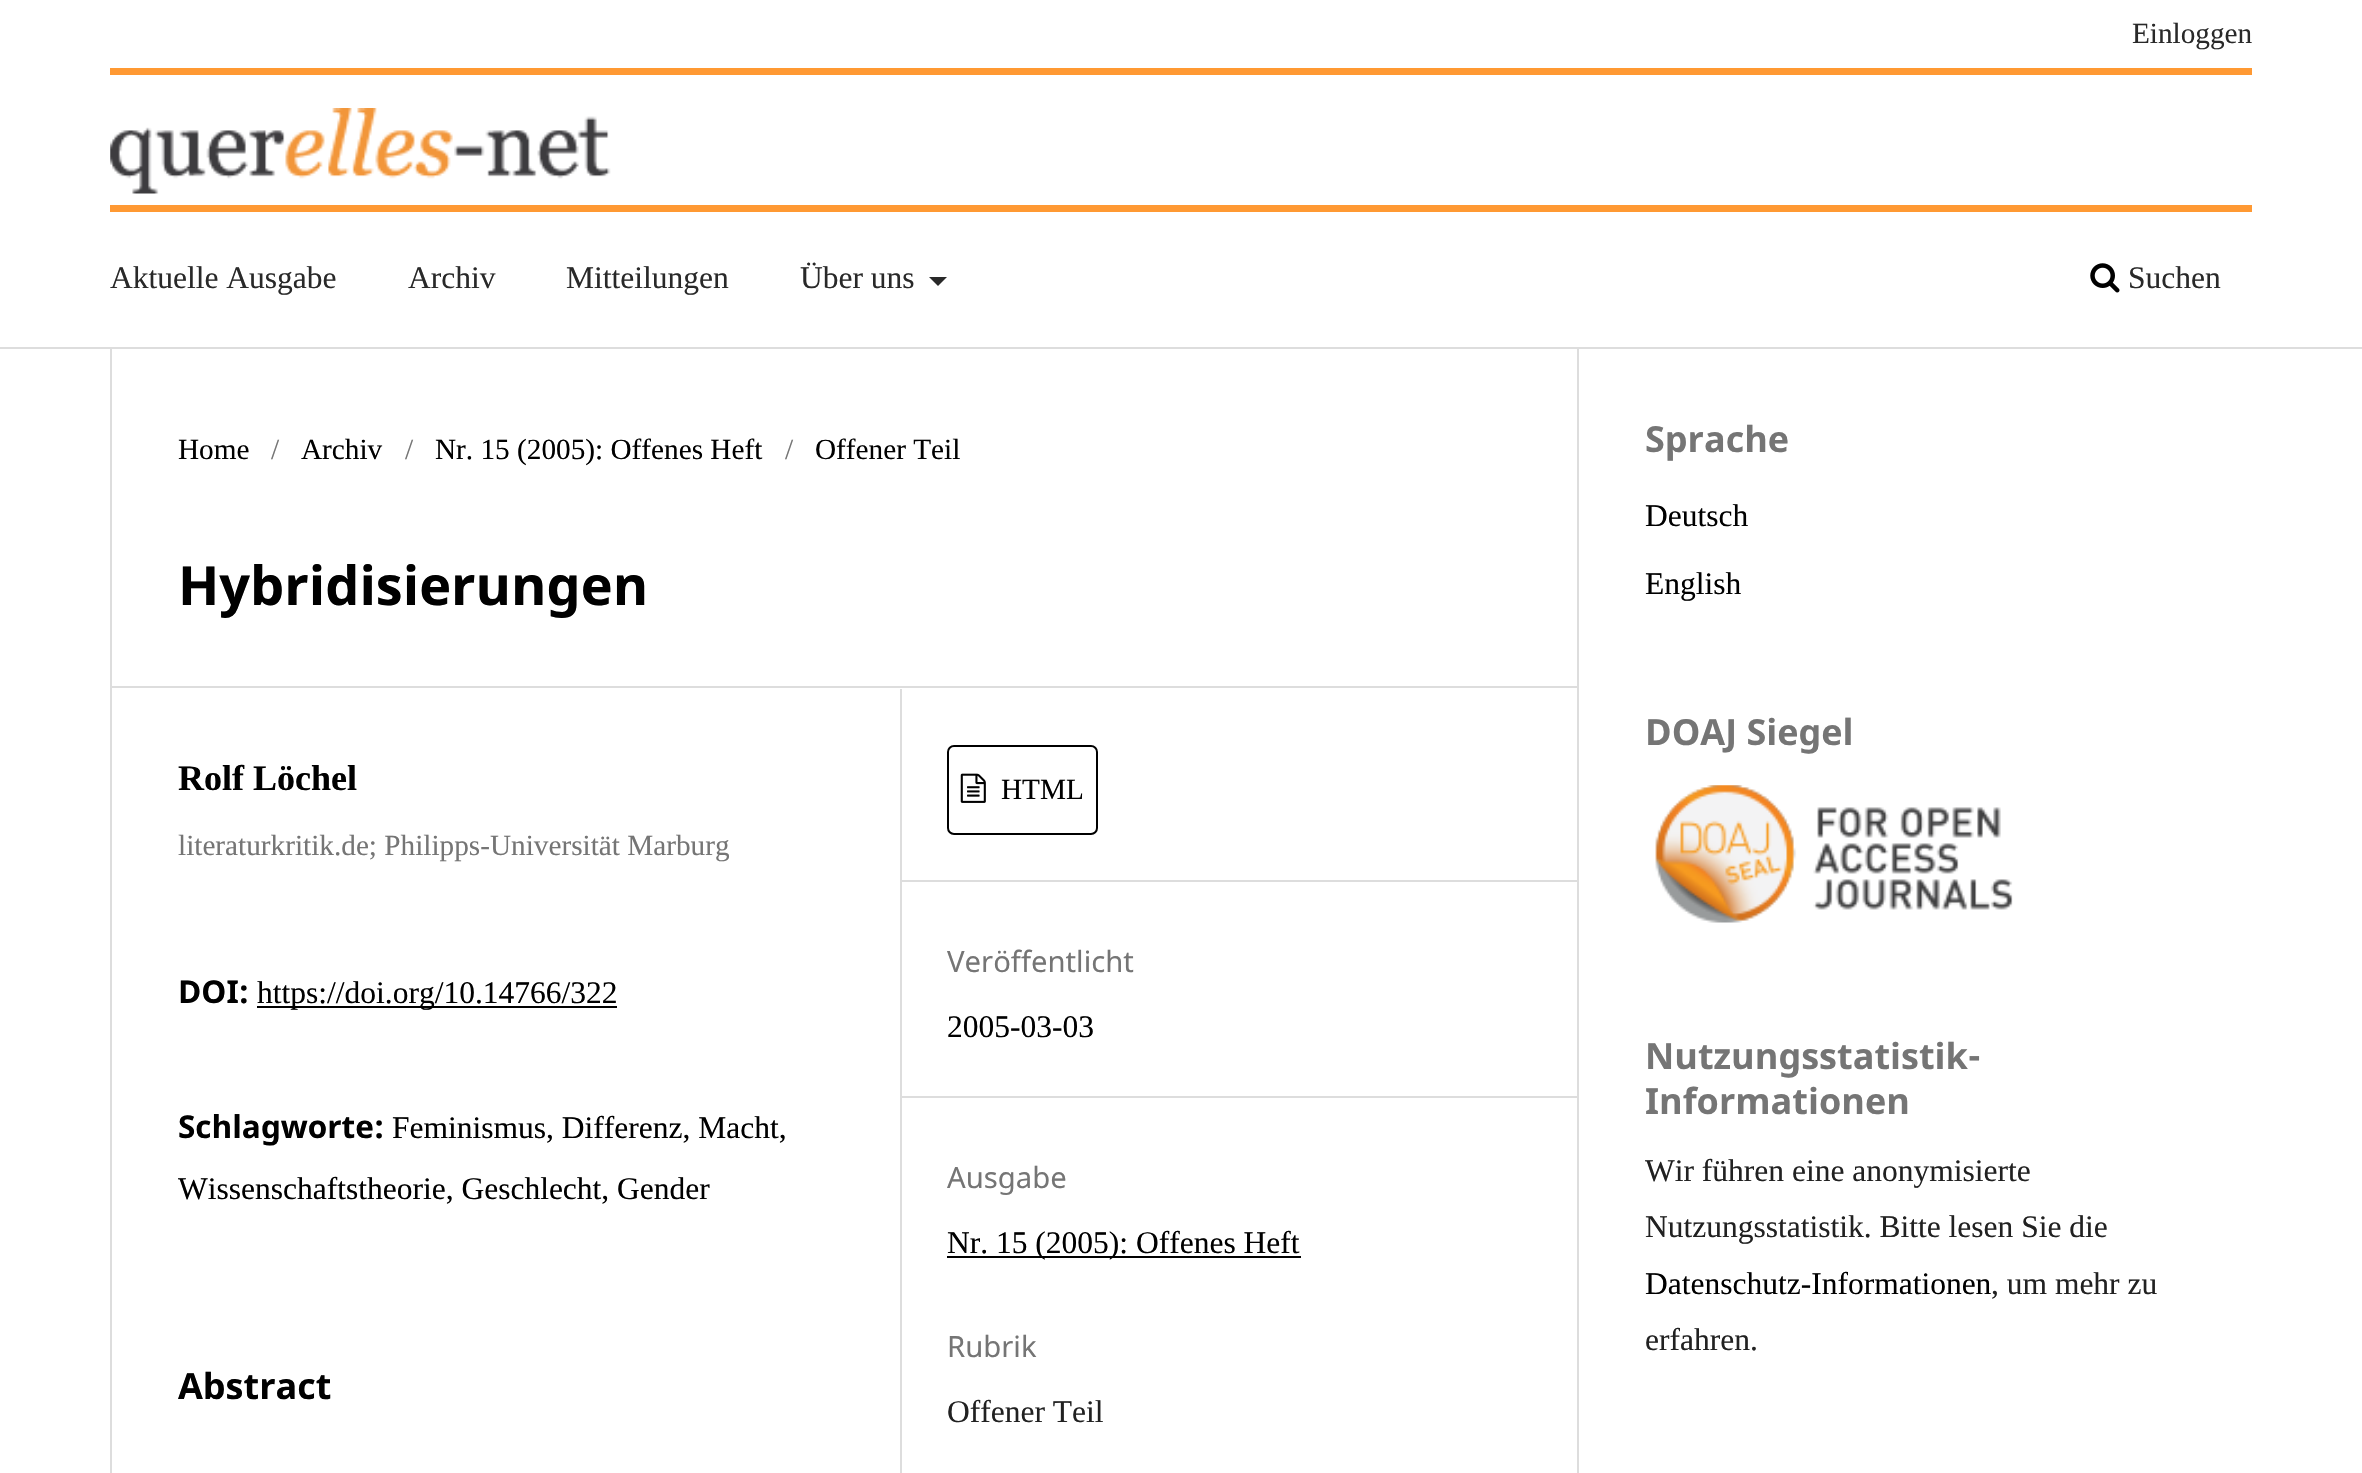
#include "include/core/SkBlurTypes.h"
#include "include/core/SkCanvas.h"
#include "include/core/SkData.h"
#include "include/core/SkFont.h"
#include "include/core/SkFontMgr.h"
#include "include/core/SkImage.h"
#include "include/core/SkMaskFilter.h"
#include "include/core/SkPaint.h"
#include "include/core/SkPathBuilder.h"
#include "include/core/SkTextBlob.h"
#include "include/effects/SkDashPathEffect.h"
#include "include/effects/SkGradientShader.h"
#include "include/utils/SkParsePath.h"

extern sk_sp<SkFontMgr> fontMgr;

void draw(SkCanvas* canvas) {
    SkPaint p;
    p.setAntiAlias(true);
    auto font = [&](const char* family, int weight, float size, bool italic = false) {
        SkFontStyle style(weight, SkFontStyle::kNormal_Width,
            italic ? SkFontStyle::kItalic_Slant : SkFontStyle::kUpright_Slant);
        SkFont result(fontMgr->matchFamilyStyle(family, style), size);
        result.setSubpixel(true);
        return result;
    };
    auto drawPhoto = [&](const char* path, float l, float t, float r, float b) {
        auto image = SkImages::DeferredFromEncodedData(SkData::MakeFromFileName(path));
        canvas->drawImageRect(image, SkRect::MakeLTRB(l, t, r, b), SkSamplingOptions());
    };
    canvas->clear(0xFFFFFFFF);
    p.setColor(0xFFDDDDDD);
    canvas->drawRect(SkRect::MakeLTRB(0, 347, 2362, 349), p);
    auto font1 = font("Liberation Serif", 400, 29.25f);
    p.setColor(0xFF292929);
    canvas->drawString("Einloggen", 2132, 43, font1, p);
    auto font2 = font("Liberation Serif", 400, 31.5f);
    {
        const struct { const char* s; float x, y; } items[] = {
            {"Aktuelle Ausgabe", 110, 288},
            {"Archiv", 408, 288},
            {"Mitteilungen", 566, 288},
            {"Über uns", 800, 288},
        };
        for (auto [s, x, y] : items) {
            canvas->drawString(s, x, y, font2, p);
        }
    }
    canvas->drawPath(SkPathBuilder().moveTo(929, 277).lineTo(947, 277).lineTo(938, 286).close().detach(), p);
    drawPhoto("media/1.png", 2090, 263, 2120, 293);
    canvas->drawString("Suchen", 2128, 288, font2, p);
    p.setColor(0xFFFF9933);
    canvas->drawRect(SkRect::MakeLTRB(110, 68, 2252, 75), p);
    canvas->drawRect(SkRect::MakeLTRB(110, 205, 2252, 212), p);
    drawPhoto("media/2.png", 110, 108, 611, 194);
    p.setColor(0xFFDDDDDD);
    canvas->drawRect(SkRect::MakeLTRB(110, 686, 1577, 688), p);
    canvas->drawRect(SkRect::MakeLTRB(110, 349, 112, 1473), p);
    p.setColor(0xFF000000);
    canvas->drawString("Home", 178, 459, font1, p);
    p.setColor(0xFF757575);
    canvas->drawString("/", 271, 459, font1, p);
    p.setColor(0xFF000000);
    canvas->drawString("Archiv", 301, 459, font1, p);
    p.setColor(0xFF757575);
    canvas->drawString("/", 405, 459, font1, p);
    p.setColor(0xFF000000);
    canvas->drawString("Nr. 15 (2005): Offenes Heft", 435, 459, font1, p);
    p.setColor(0xFF757575);
    canvas->drawString("/", 785, 459, font1, p);
    p.setColor(0xFF000000);
    canvas->drawString("Offener Teil", 815, 459, font1, p);
    auto font3 = font("Noto Sans", 700, 54);
    canvas->drawString("Hybridisierungen", 178, 605, font3, p);
    p.setColor(0xFFDDDDDD);
    canvas->drawRect(SkRect::MakeLTRB(900, 689, 902, 1473), p);
    auto font4 = font("Liberation Serif", 700, 36);
    p.setColor(0xFF000000);
    canvas->drawString("Rolf Löchel", 178, 790, font4, p);
    p.setColor(0xFF757575);
    canvas->drawString("literaturkritik.de; Philipps-Universität Marburg", 178, 855, font1, p);
    auto font5 = font("Noto Sans", 700, 31.5f);
    p.setColor(0xFF000000);
    canvas->drawString("DOI:", 178, 1003, font5, p);
    canvas->drawRect(SkRect::MakeLTRB(257, 1006, 617, 1008), p);
    canvas->drawString("https://doi.org/10.14766/322", 257, 1003, font2, p);
    canvas->drawString("Schlagworte:", 178, 1138, font5, p);
    canvas->drawString("Feminismus, Differenz, Macht,", 392, 1138, font2, p);
    canvas->drawString("Wissenschaftstheorie, Geschlecht, Gender", 178, 1199, font2, p);
    auto font6 = font("Noto Sans", 700, 36);
    canvas->drawString("Abstract", 178, 1399, font6, p);
    p.setColor(0xFFDDDDDD);
    canvas->drawRect(SkRect::MakeLTRB(902, 880, 1577, 882), p);
    p.setStyle(SkPaint::kStroke_Style);
    p.setStrokeWidth(2);
    p.setColor(0xFF000000);
    canvas->drawRoundRect(SkRect::MakeLTRB(948, 746, 1097, 834), 6, 6, p);
    drawPhoto("media/3.png", 960, 773, 986, 803);
    p.setStyle(SkPaint::kFill_Style);
    canvas->drawString("HTML", 1001, 799, font1, p);
    p.setColor(0xFFDDDDDD);
    canvas->drawRect(SkRect::MakeLTRB(902, 1096, 1577, 1098), p);
    auto font7 = font("Noto Sans", 400, 29.25f);
    p.setColor(0xFF757575);
    canvas->drawString("Veröffentlicht", 947, 972, font7, p);
    p.setColor(0xFF000000);
    canvas->drawString("2005-03-03", 947, 1037, font2, p);
    p.setColor(0xFF757575);
    canvas->drawString("Ausgabe", 947, 1188, font7, p);
    p.setColor(0xFF000000);
    canvas->drawRect(SkRect::MakeLTRB(947, 1256, 1301, 1258), p);
    canvas->drawString("Nr. 15 (2005): Offenes Heft", 947, 1253, font2, p);
    p.setColor(0xFF757575);
    canvas->drawString("Rubrik", 947, 1357, font7, p);
    p.setColor(0xFF212121);
    canvas->drawString("Offener Teil", 947, 1422, font2, p);
    p.setColor(0xFFDDDDDD);
    canvas->drawRect(SkRect::MakeLTRB(1577, 349, 1579, 1473), p);
    p.setColor(0xFF757575);
    canvas->drawString("Sprache", 1645, 452, font6, p);
    p.setColor(0xFF000000);
    canvas->drawString("Deutsch", 1645, 526, font2, p);
    canvas->drawString("English", 1645, 594, font2, p);
    p.setColor(0xFF757575);
    canvas->drawString("DOAJ Siegel", 1645, 745, font6, p);
    drawPhoto("media/4.png", 1655, 785, 2013, 923);
    canvas->drawString("Nutzungsstatistik-", 1645, 1069, font6, p);
    canvas->drawString("Informationen", 1645, 1114, font6, p);
    p.setColor(0xFF212121);
    canvas->drawString("Wir führen eine anonymisierte", 1645, 1181, font2, p);
    canvas->drawString("Nutzungsstatistik. Bitte lesen Sie die", 1645, 1237, font2, p);
    p.setColor(0xFF000000);
    canvas->drawString("Datenschutz-Informationen", 1645, 1294, font2, p);
    p.setColor(0xFF212121);
    canvas->drawString(", um mehr zu", 1991, 1294, font2, p);
    canvas->drawString("erfahren.", 1645, 1350, font2, p);
}
